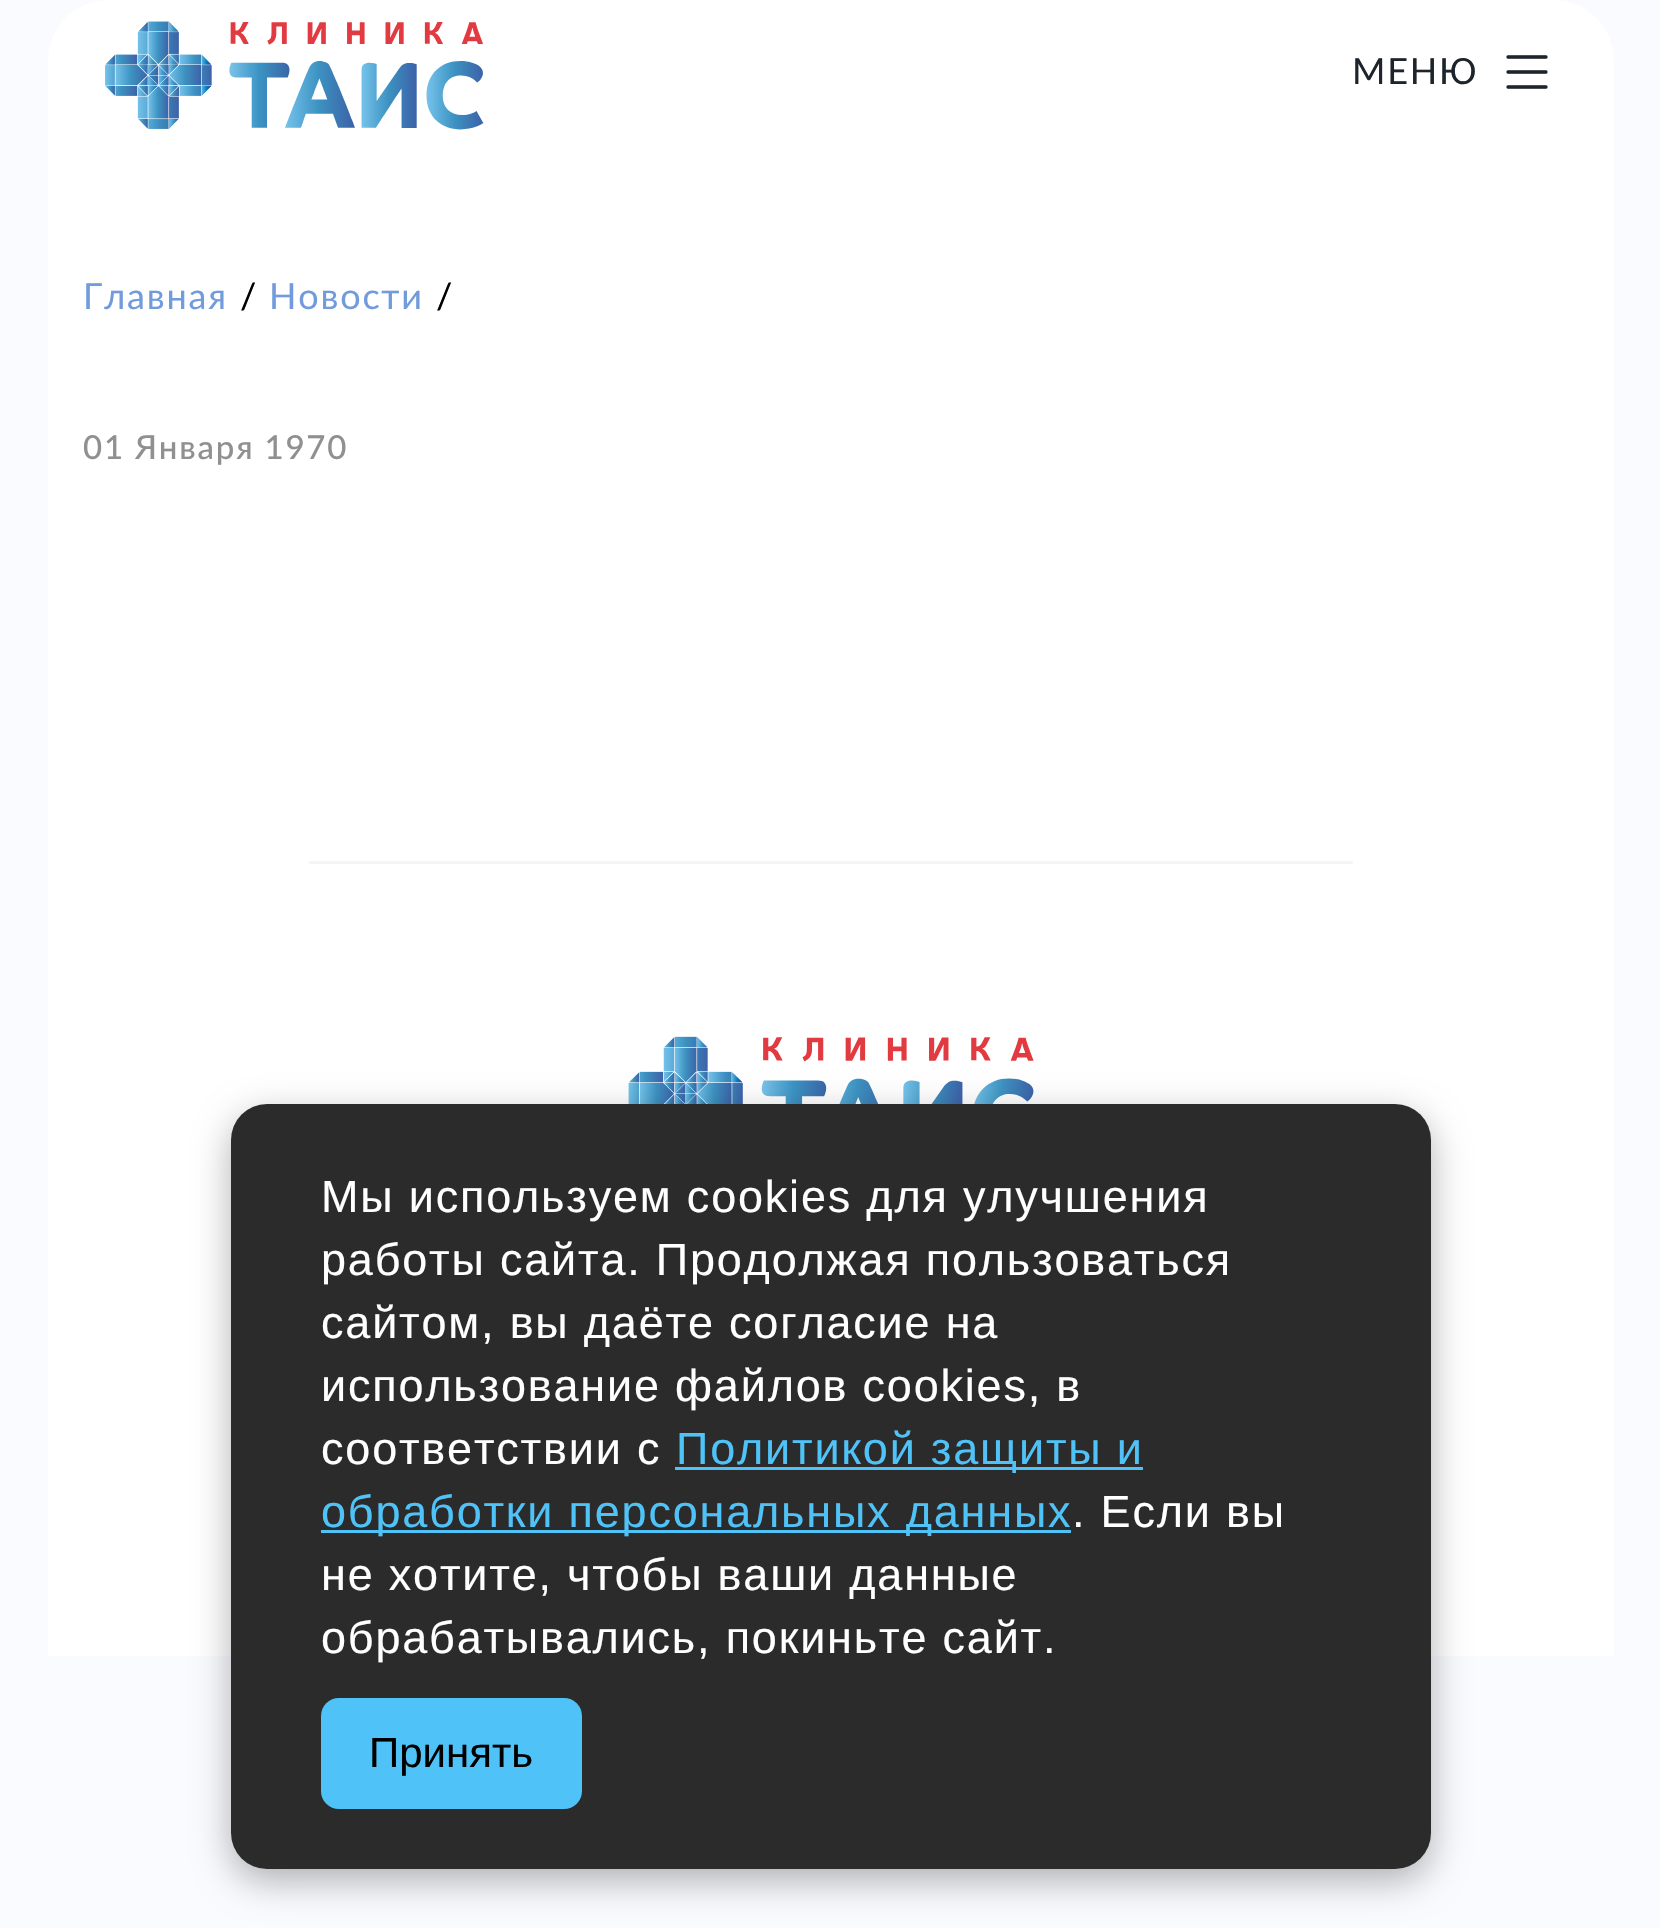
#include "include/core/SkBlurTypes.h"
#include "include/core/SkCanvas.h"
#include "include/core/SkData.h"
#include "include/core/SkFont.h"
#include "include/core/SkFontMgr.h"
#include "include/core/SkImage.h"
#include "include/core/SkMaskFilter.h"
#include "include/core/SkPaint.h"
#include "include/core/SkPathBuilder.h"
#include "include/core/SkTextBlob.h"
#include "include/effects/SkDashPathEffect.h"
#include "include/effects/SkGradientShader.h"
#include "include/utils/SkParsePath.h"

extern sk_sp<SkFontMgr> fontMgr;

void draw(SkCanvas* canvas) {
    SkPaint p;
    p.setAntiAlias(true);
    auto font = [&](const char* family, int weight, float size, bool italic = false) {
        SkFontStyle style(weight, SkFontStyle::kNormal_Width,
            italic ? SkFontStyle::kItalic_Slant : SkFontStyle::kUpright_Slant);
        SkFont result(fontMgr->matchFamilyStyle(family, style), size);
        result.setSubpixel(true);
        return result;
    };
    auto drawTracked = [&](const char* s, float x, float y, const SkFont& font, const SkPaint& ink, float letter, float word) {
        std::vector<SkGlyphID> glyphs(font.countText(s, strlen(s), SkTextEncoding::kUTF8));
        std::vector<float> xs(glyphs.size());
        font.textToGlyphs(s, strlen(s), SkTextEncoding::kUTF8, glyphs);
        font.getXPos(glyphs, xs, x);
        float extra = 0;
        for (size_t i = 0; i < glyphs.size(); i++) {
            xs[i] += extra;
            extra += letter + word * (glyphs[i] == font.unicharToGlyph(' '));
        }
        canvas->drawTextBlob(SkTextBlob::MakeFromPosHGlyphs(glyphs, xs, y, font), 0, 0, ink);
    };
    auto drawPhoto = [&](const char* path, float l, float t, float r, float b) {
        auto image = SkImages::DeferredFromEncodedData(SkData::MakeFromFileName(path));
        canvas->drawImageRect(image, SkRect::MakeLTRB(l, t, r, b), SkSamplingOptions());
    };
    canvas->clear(0xFFFAFBFF);
    p.setColor(0xFFFFFFFF);
    canvas->drawPath(SkPathBuilder().moveTo(108, 0).lineTo(1554, 0).cubicTo(1587, 0, 1614, 27, 1614, 60).lineTo(1614, 861).lineTo(48, 861).lineTo(48, 60).cubicTo(48, 27, 75, 0, 108, 0).close().detach(), p);
    drawPhoto("media/1.png", 105, 21, 484, 130);
    auto font1 = font("Lato", 400, 36);
    p.setColor(0xFF1D242B);
    drawTracked("МЕНЮ", 1352, 84, font1, p, 1.8f, 0);
    drawPhoto("media/2.png", 1506, 55, 1548, 89);
    p.setColor(0xFF729BDB);
    drawTracked("Главная", 83, 309, font1, p, 1.8f, 0);
    p.setColor(0xFF000000);
    drawTracked("/", 240, 309, font1, p, 1.8f, 0);
    p.setColor(0xFF729BDB);
    drawTracked("Новости", 269, 309, font1, p, 1.8f, 0);
    p.setColor(0xFF000000);
    drawTracked("/", 436, 309, font1, p, 1.8f, 0);
    auto font2 = font("Lato", 500, 33);
    p.setColor(0xFF909090);
    drawTracked("01 Января 1970", 83, 459, font2, p, 1.8f, 0);
    {
        const struct { float l, t, r, b; SkColor color; } items[] = {
            {48, 861, 309, 864, 0xFFFFFFFF},
            {309, 861, 1353, 864, 0xFFF5F5F5},
            {1353, 861, 1614, 864, 0xFFFFFFFF},
            {48, 864, 1614, 1656, 0xFFFFFFFF},
        };
        for (auto [l, t, r, b, color] : items) {
            p.setColor(color);
            canvas->drawRect(SkRect::MakeLTRB(l, t, r, b), p);
        }
    }
    drawPhoto("media/3.png", 628, 1036, 1034, 1104);
    p.setColor(0x4D000000);
    p.setMaskFilter(SkMaskFilter::MakeBlur(kNormal_SkBlurStyle, 18));
    canvas->drawRoundRect(SkRect::MakeLTRB(231, 1116, 1431, 1881), 36, 36, p);
    p.setMaskFilter(nullptr);
    p.setColor(0xFF2B2B2B);
    canvas->drawRoundRect(SkRect::MakeLTRB(231, 1104, 1431, 1869), 36, 36, p);
    auto font3 = font("Liberation Sans", 400, 45);
    p.setColor(0xFFFFFFFF);
    {
        const struct { const char* s; float x, y; } items[] = {
            {"Мы используем cookies для улучшения", 321, 1212},
            {"работы сайта. Продолжая пользоваться", 321, 1275},
            {"сайтом, вы даёте согласие на", 321, 1338},
            {"использование файлов cookies, в", 321, 1401},
            {"соответствии с", 321, 1464},
        };
        for (auto [s, x, y] : items) {
            drawTracked(s, x, y, font3, p, 1.8f, 0);
        }
    }
    p.setColor(0xFF4FC3F7);
    canvas->drawRect(SkRect::MakeLTRB(675, 1467, 1143, 1470), p);
    drawTracked("Политикой защиты и", 676, 1464, font3, p, 1.8f, 0);
    canvas->drawRect(SkRect::MakeLTRB(321, 1530, 1071, 1533), p);
    drawTracked("обработки персональных данных", 321, 1527, font3, p, 1.8f, 0);
    p.setColor(0xFFFFFFFF);
    {
        const struct { const char* s; float x, y; } items[] = {
            {". Если вы", 1072, 1527},
            {"не хотите, чтобы ваши данные", 321, 1590},
            {"обрабатывались, покиньте сайт.", 321, 1653},
        };
        for (auto [s, x, y] : items) {
            drawTracked(s, x, y, font3, p, 1.8f, 0);
        }
    }
    p.setColor(0xFF4FC3F7);
    canvas->drawRoundRect(SkRect::MakeLTRB(321, 1698, 582, 1809), 18, 18, p);
    auto font4 = font("Liberation Sans", 400, 42);
    p.setColor(0xFF000000);
    canvas->drawString("Принять", 369, 1767, font4, p);
}
